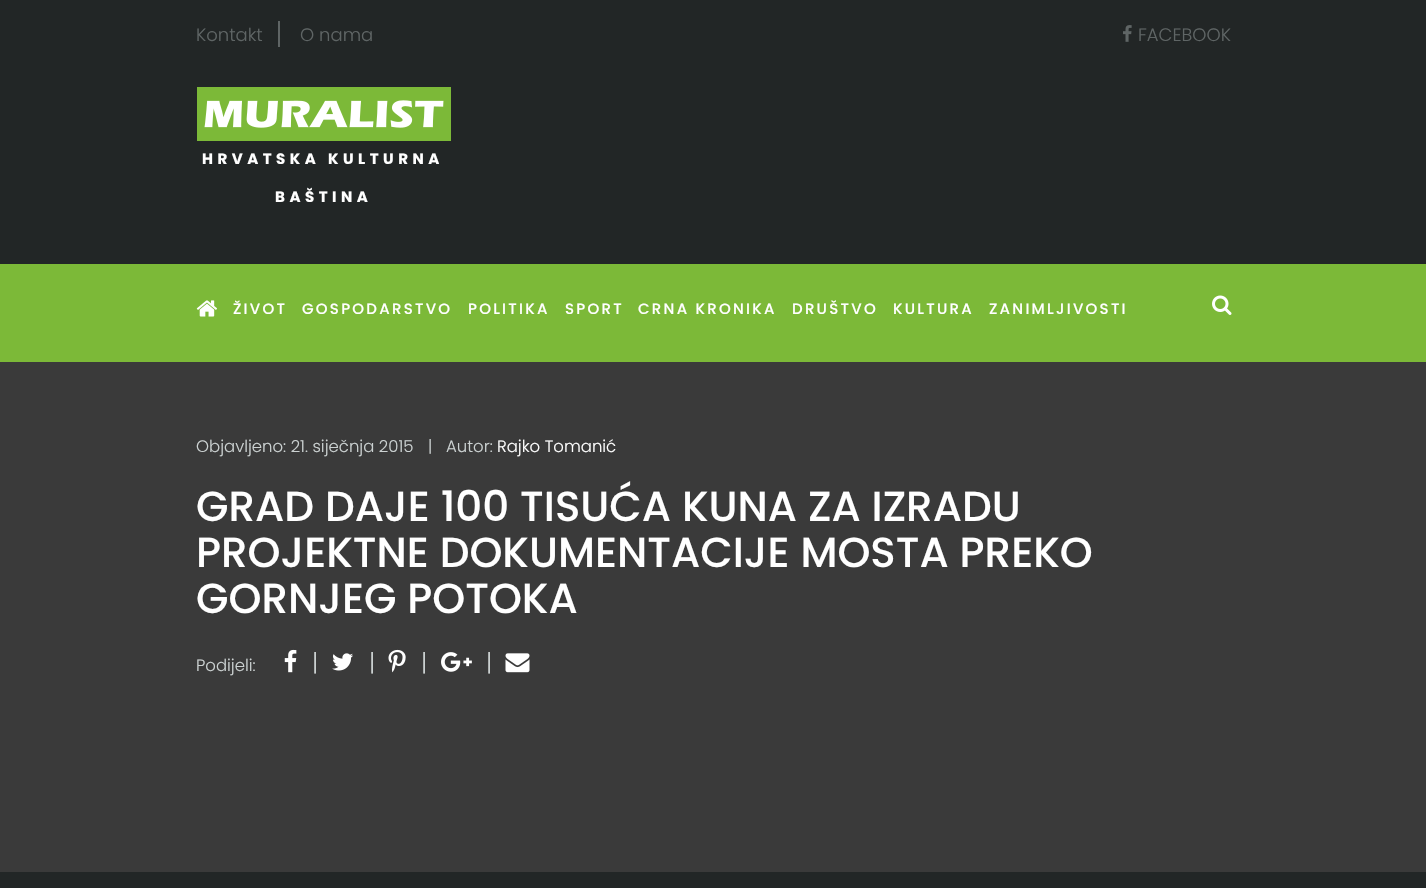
#include "include/core/SkBlurTypes.h"
#include "include/core/SkCanvas.h"
#include "include/core/SkData.h"
#include "include/core/SkFont.h"
#include "include/core/SkFontMgr.h"
#include "include/core/SkImage.h"
#include "include/core/SkMaskFilter.h"
#include "include/core/SkPaint.h"
#include "include/core/SkPathBuilder.h"
#include "include/core/SkTextBlob.h"
#include "include/effects/SkDashPathEffect.h"
#include "include/effects/SkGradientShader.h"
#include "include/utils/SkParsePath.h"

extern sk_sp<SkFontMgr> fontMgr;

void draw(SkCanvas* canvas) {
    SkPaint p;
    p.setAntiAlias(true);
    auto font = [&](const char* family, int weight, float size, bool italic = false) {
        SkFontStyle style(weight, SkFontStyle::kNormal_Width,
            italic ? SkFontStyle::kItalic_Slant : SkFontStyle::kUpright_Slant);
        SkFont result(fontMgr->matchFamilyStyle(family, style), size);
        result.setSubpixel(true);
        return result;
    };
    auto drawTracked = [&](const char* s, float x, float y, const SkFont& font, const SkPaint& ink, float letter, float word) {
        std::vector<SkGlyphID> glyphs(font.countText(s, strlen(s), SkTextEncoding::kUTF8));
        std::vector<float> xs(glyphs.size());
        font.textToGlyphs(s, strlen(s), SkTextEncoding::kUTF8, glyphs);
        font.getXPos(glyphs, xs, x);
        float extra = 0;
        for (size_t i = 0; i < glyphs.size(); i++) {
            xs[i] += extra;
            extra += letter + word * (glyphs[i] == font.unicharToGlyph(' '));
        }
        canvas->drawTextBlob(SkTextBlob::MakeFromPosHGlyphs(glyphs, xs, y, font), 0, 0, ink);
    };
    auto drawPhoto = [&](const char* path, float l, float t, float r, float b) {
        auto image = SkImages::DeferredFromEncodedData(SkData::MakeFromFileName(path));
        canvas->drawImageRect(image, SkRect::MakeLTRB(l, t, r, b), SkSamplingOptions());
    };
    canvas->clear(0xFF222626);
    auto font1 = font("Poppins", 300, 18);
    p.setColor(0xFF5F6565);
    canvas->drawString("Kontakt", 196, 41, font1, p);
    canvas->drawRect(SkRect::MakeLTRB(278, 21, 280, 47), p);
    canvas->drawString("O nama", 300, 41, font1, p);
    drawPhoto("media/1.png", 1123, 25, 1132, 42);
    canvas->drawString("FACEBOOK", 1138, 41, font1, p);
    drawPhoto("media/2.png", 197, 87, 451, 141);
    auto font2 = font("Poppins", 700, 15);
    p.setColor(0xFFFFFFFF);
    drawTracked("HRVATSKA KULTURNA", 202, 164, font2, p, 4.5f, 0);
    drawTracked("BAŠTINA", 275, 202, font2, p, 4.5f, 0);
    p.setColor(0xFF7CB938);
    canvas->drawRect(SkRect::MakeLTRB(0, 264, 1426, 362), p);
    drawPhoto("media/3.png", 196, 300, 217, 317);
    auto font3 = font("Poppins", 500, 15);
    p.setColor(0xFFFFFFFF);
    {
        const struct { const char* s; float x, y; } items[] = {
            {"ŽIVOT", 233, 314},
            {"GOSPODARSTVO", 302, 314},
            {"POLITIKA", 468, 314},
            {"SPORT", 565, 314},
            {"CRNA KRONIKA", 638, 314},
            {"DRUŠTVO", 792, 314},
            {"KULTURA", 893, 314},
            {"ZANIMLJIVOSTI", 989, 314},
        };
        for (auto [s, x, y] : items) {
            drawTracked(s, x, y, font3, p, 2.25f, 0);
        }
    }
    drawPhoto("media/4.png", 1212, 295, 1232, 315);
    p.setColor(0xFF3A3A3A);
    canvas->drawRect(SkRect::MakeLTRB(0, 362, 1426, 872), p);
    auto font4 = font("Poppins", 300, 16.5f);
    p.setColor(0xFFCCD2D2);
    {
        const struct { const char* s; float x, y; } items[] = {
            {"Objavljeno: 21. siječnja 2015", 196, 452},
            {"|", 428, 452},
            {"Autor:", 446, 452},
        };
        for (auto [s, x, y] : items) {
            canvas->drawString(s, x, y, font4, p);
        }
    }
    p.setColor(0xFFFFFFFF);
    canvas->drawString("Rajko Tomanić", 497, 452, font4, p);
    auto font5 = font("Poppins", 500, 42);
    {
        const struct { const char* s; float x, y; } items[] = {
            {"GRAD DAJE 100 TISUĆA KUNA ZA IZRADU", 196, 521},
            {"PROJEKTNE DOKUMENTACIJE MOSTA PREKO", 196, 567},
            {"GORNJEG POTOKA", 196, 613},
        };
        for (auto [s, x, y] : items) {
            canvas->drawString(s, x, y, font5, p);
        }
    }
    p.setColor(0xFFCCD2D2);
    canvas->drawString("Podijeli:", 196, 671, font4, p);
    drawPhoto("media/5.png", 284, 649, 297, 673);
    auto font6 = font("Poppins", 300, 24);
    canvas->drawString("|", 312, 671, font6, p);
    drawPhoto("media/6.png", 332, 653, 353, 671);
    canvas->drawString("|", 369, 671, font6, p);
    drawPhoto("media/7.png", 388, 649, 406, 673);
    canvas->drawString("|", 421, 671, font6, p);
    drawPhoto("media/8.png", 441, 652, 472, 672);
    canvas->drawString("|", 486, 671, font6, p);
    drawPhoto("media/9.png", 505, 653, 530, 673);
}
